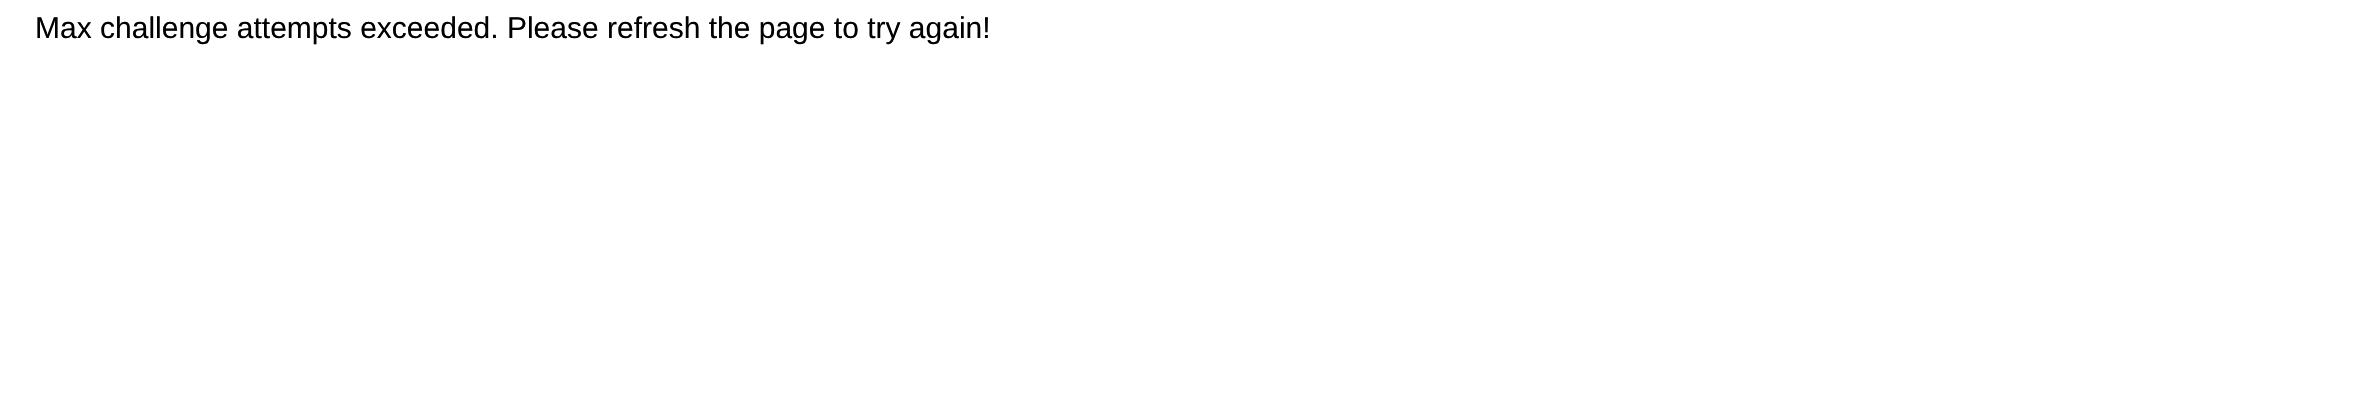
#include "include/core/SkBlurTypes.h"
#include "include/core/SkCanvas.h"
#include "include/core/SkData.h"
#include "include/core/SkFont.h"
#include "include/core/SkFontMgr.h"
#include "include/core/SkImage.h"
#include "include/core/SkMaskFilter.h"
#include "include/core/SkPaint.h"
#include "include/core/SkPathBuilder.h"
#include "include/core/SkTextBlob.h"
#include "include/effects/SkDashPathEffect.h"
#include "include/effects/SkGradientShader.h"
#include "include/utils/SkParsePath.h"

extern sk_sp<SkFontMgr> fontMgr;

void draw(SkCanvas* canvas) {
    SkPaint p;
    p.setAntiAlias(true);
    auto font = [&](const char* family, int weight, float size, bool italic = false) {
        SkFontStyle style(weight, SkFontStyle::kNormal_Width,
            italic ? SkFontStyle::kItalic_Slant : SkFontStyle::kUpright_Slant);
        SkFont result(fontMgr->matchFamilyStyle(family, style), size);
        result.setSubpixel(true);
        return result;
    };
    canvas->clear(0xFFFFFFFF);
    auto font1 = font("Liberation Sans", 400, 30);
    p.setColor(0xFF000000);
    canvas->drawString("Max challenge attempts exceeded. Please refresh the page to try again!", 35, 38, font1, p);
}
